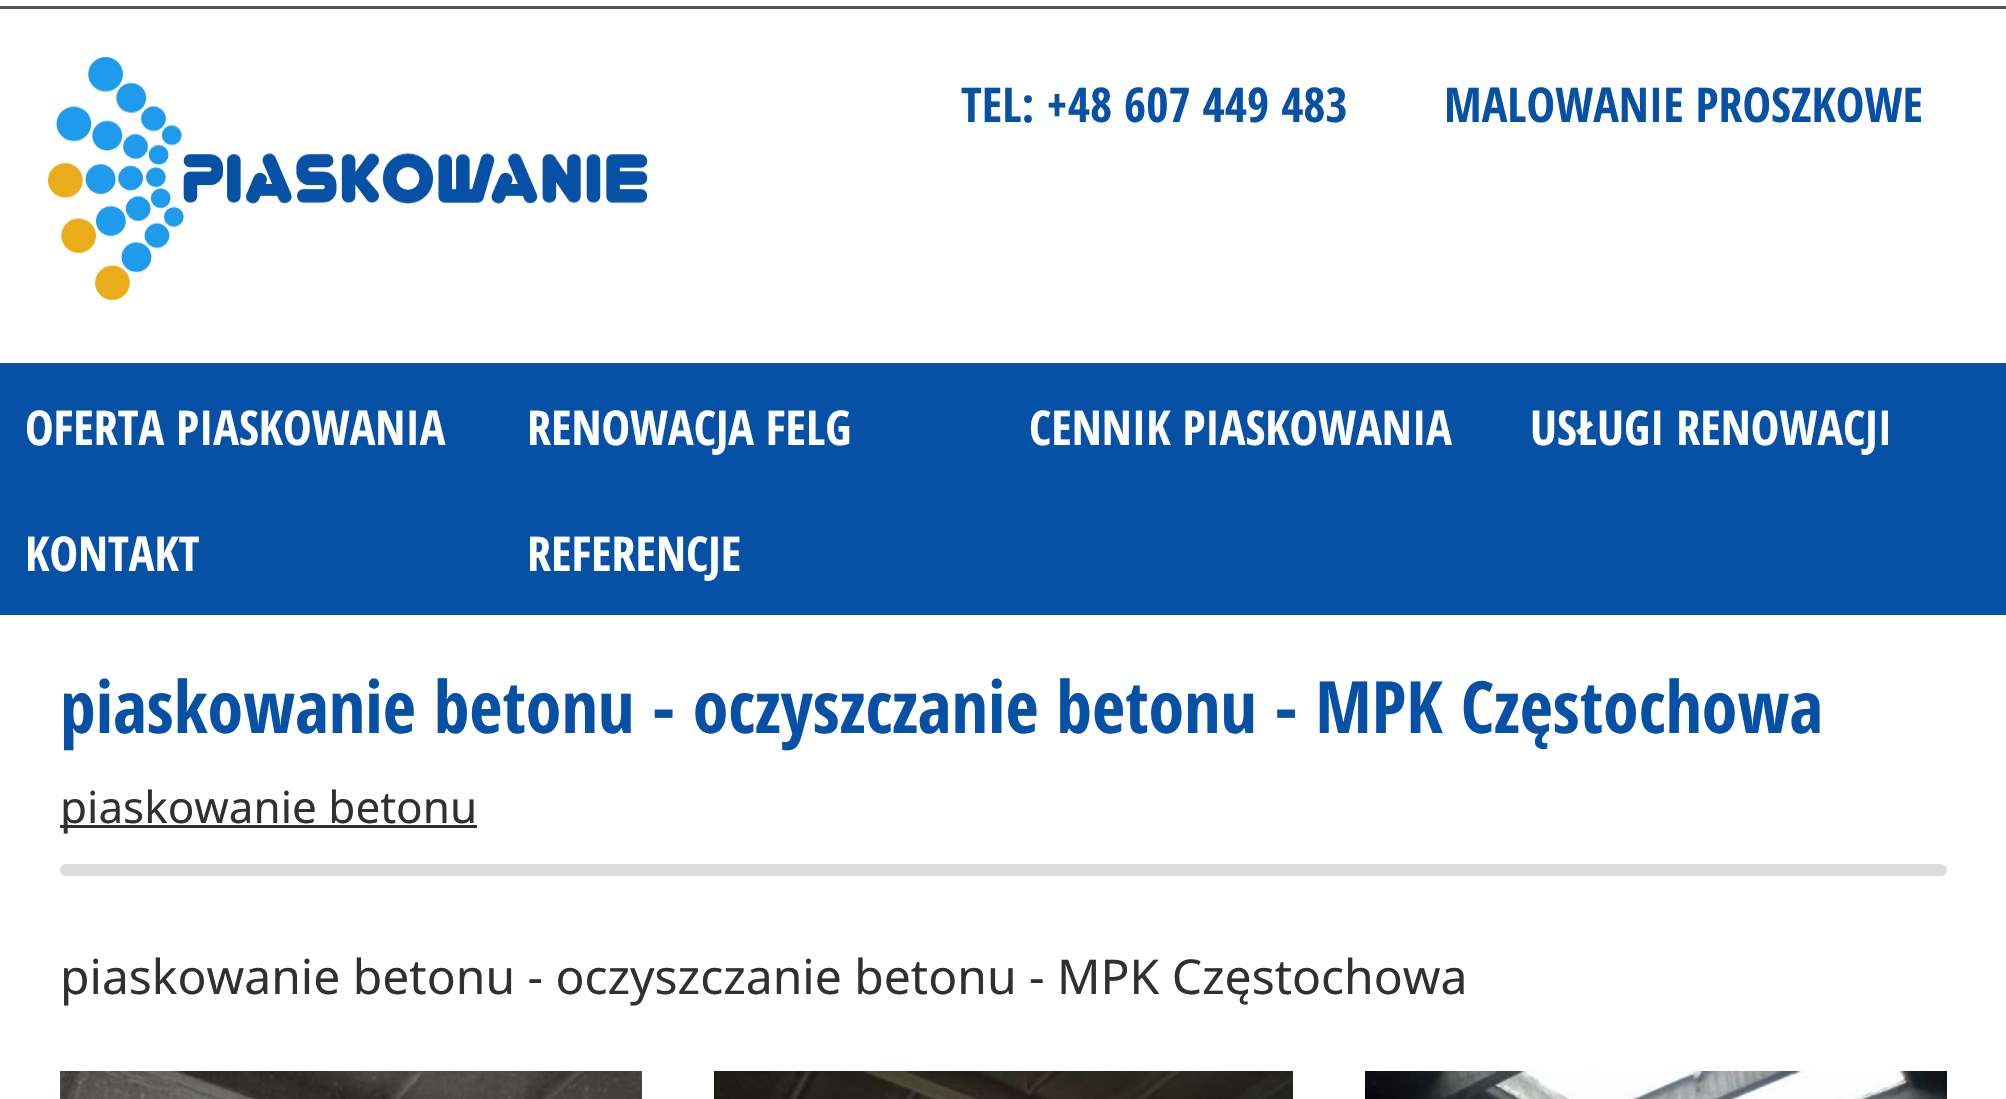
#include "include/core/SkBlurTypes.h"
#include "include/core/SkCanvas.h"
#include "include/core/SkData.h"
#include "include/core/SkFont.h"
#include "include/core/SkFontMgr.h"
#include "include/core/SkImage.h"
#include "include/core/SkMaskFilter.h"
#include "include/core/SkPaint.h"
#include "include/core/SkPathBuilder.h"
#include "include/core/SkTextBlob.h"
#include "include/effects/SkDashPathEffect.h"
#include "include/effects/SkGradientShader.h"
#include "include/utils/SkParsePath.h"

extern sk_sp<SkFontMgr> fontMgr;

void draw(SkCanvas* canvas) {
    SkPaint p;
    p.setAntiAlias(true);
    auto font = [&](const char* family, int weight, float size, bool italic = false) {
        SkFontStyle style(weight, SkFontStyle::kNormal_Width,
            italic ? SkFontStyle::kItalic_Slant : SkFontStyle::kUpright_Slant);
        SkFont result(fontMgr->matchFamilyStyle(family, style), size);
        result.setSubpixel(true);
        return result;
    };
    auto drawPhoto = [&](const char* path, float l, float t, float r, float b) {
        auto image = SkImages::DeferredFromEncodedData(SkData::MakeFromFileName(path));
        canvas->drawImageRect(image, SkRect::MakeLTRB(l, t, r, b), SkSamplingOptions());
    };
    canvas->clear(0xFFFFFFFF);
    p.setColor(0xFF555555);
    canvas->drawRect(SkRect::MakeLTRB(0, 6, 2006, 9), p);
    drawPhoto("media/1.png", 48, 57, 648, 300);
    auto font1 = font("Open Sans Condensed", 700, 48);
    p.setColor(0xFF0650A6);
    canvas->drawString("TEL: +48 607 449 483", 961, 122, font1, p);
    canvas->drawString("MALOWANIE PROSZKOWE", 1444, 122, font1, p);
    canvas->drawRect(SkRect::MakeLTRB(0, 363, 2006, 615), p);
    p.setColor(0xFFFFFFFF);
    {
        const struct { const char* s; float x, y; } items[] = {
            {"OFERTA PIASKOWANIA", 25, 445},
            {"RENOWACJA FELG", 527, 445},
            {"CENNIK PIASKOWANIA", 1029, 445},
            {"USŁUGI RENOWACJI", 1530, 445},
            {"KONTAKT", 25, 571},
            {"REFERENCJE", 527, 571},
        };
        for (auto [s, x, y] : items) {
            canvas->drawString(s, x, y, font1, p);
        }
    }
    auto font2 = font("Open Sans Condensed", 700, 72);
    p.setColor(0xFF0650A6);
    canvas->drawString("piaskowanie betonu - oczyszczanie betonu - MPK Częstochowa", 60, 733, font2, p);
    p.setColor(0xFF303030);
    canvas->drawRect(SkRect::MakeLTRB(60, 825, 477, 828), p);
    auto font3 = font("Noto Sans", 400, 44);
    canvas->drawString("piaskowanie betonu", 60, 823, font3, p);
    p.setColor(0xFFDDDDDD);
    canvas->drawRoundRect(SkRect::MakeLTRB(60, 864, 1947, 876), 6, 6, p);
    auto font4 = font("Noto Sans", 400, 48);
    p.setColor(0xFF303030);
    canvas->drawString("piaskowanie betonu - oczyszczanie betonu - MPK Częstochowa", 60, 994, font4, p);
    drawPhoto("media/2.png", 60, 1071, 642, 1099);
    drawPhoto("media/3.png", 714, 1071, 1293, 1099);
    drawPhoto("media/4.png", 1365, 1071, 1947, 1099);
}
